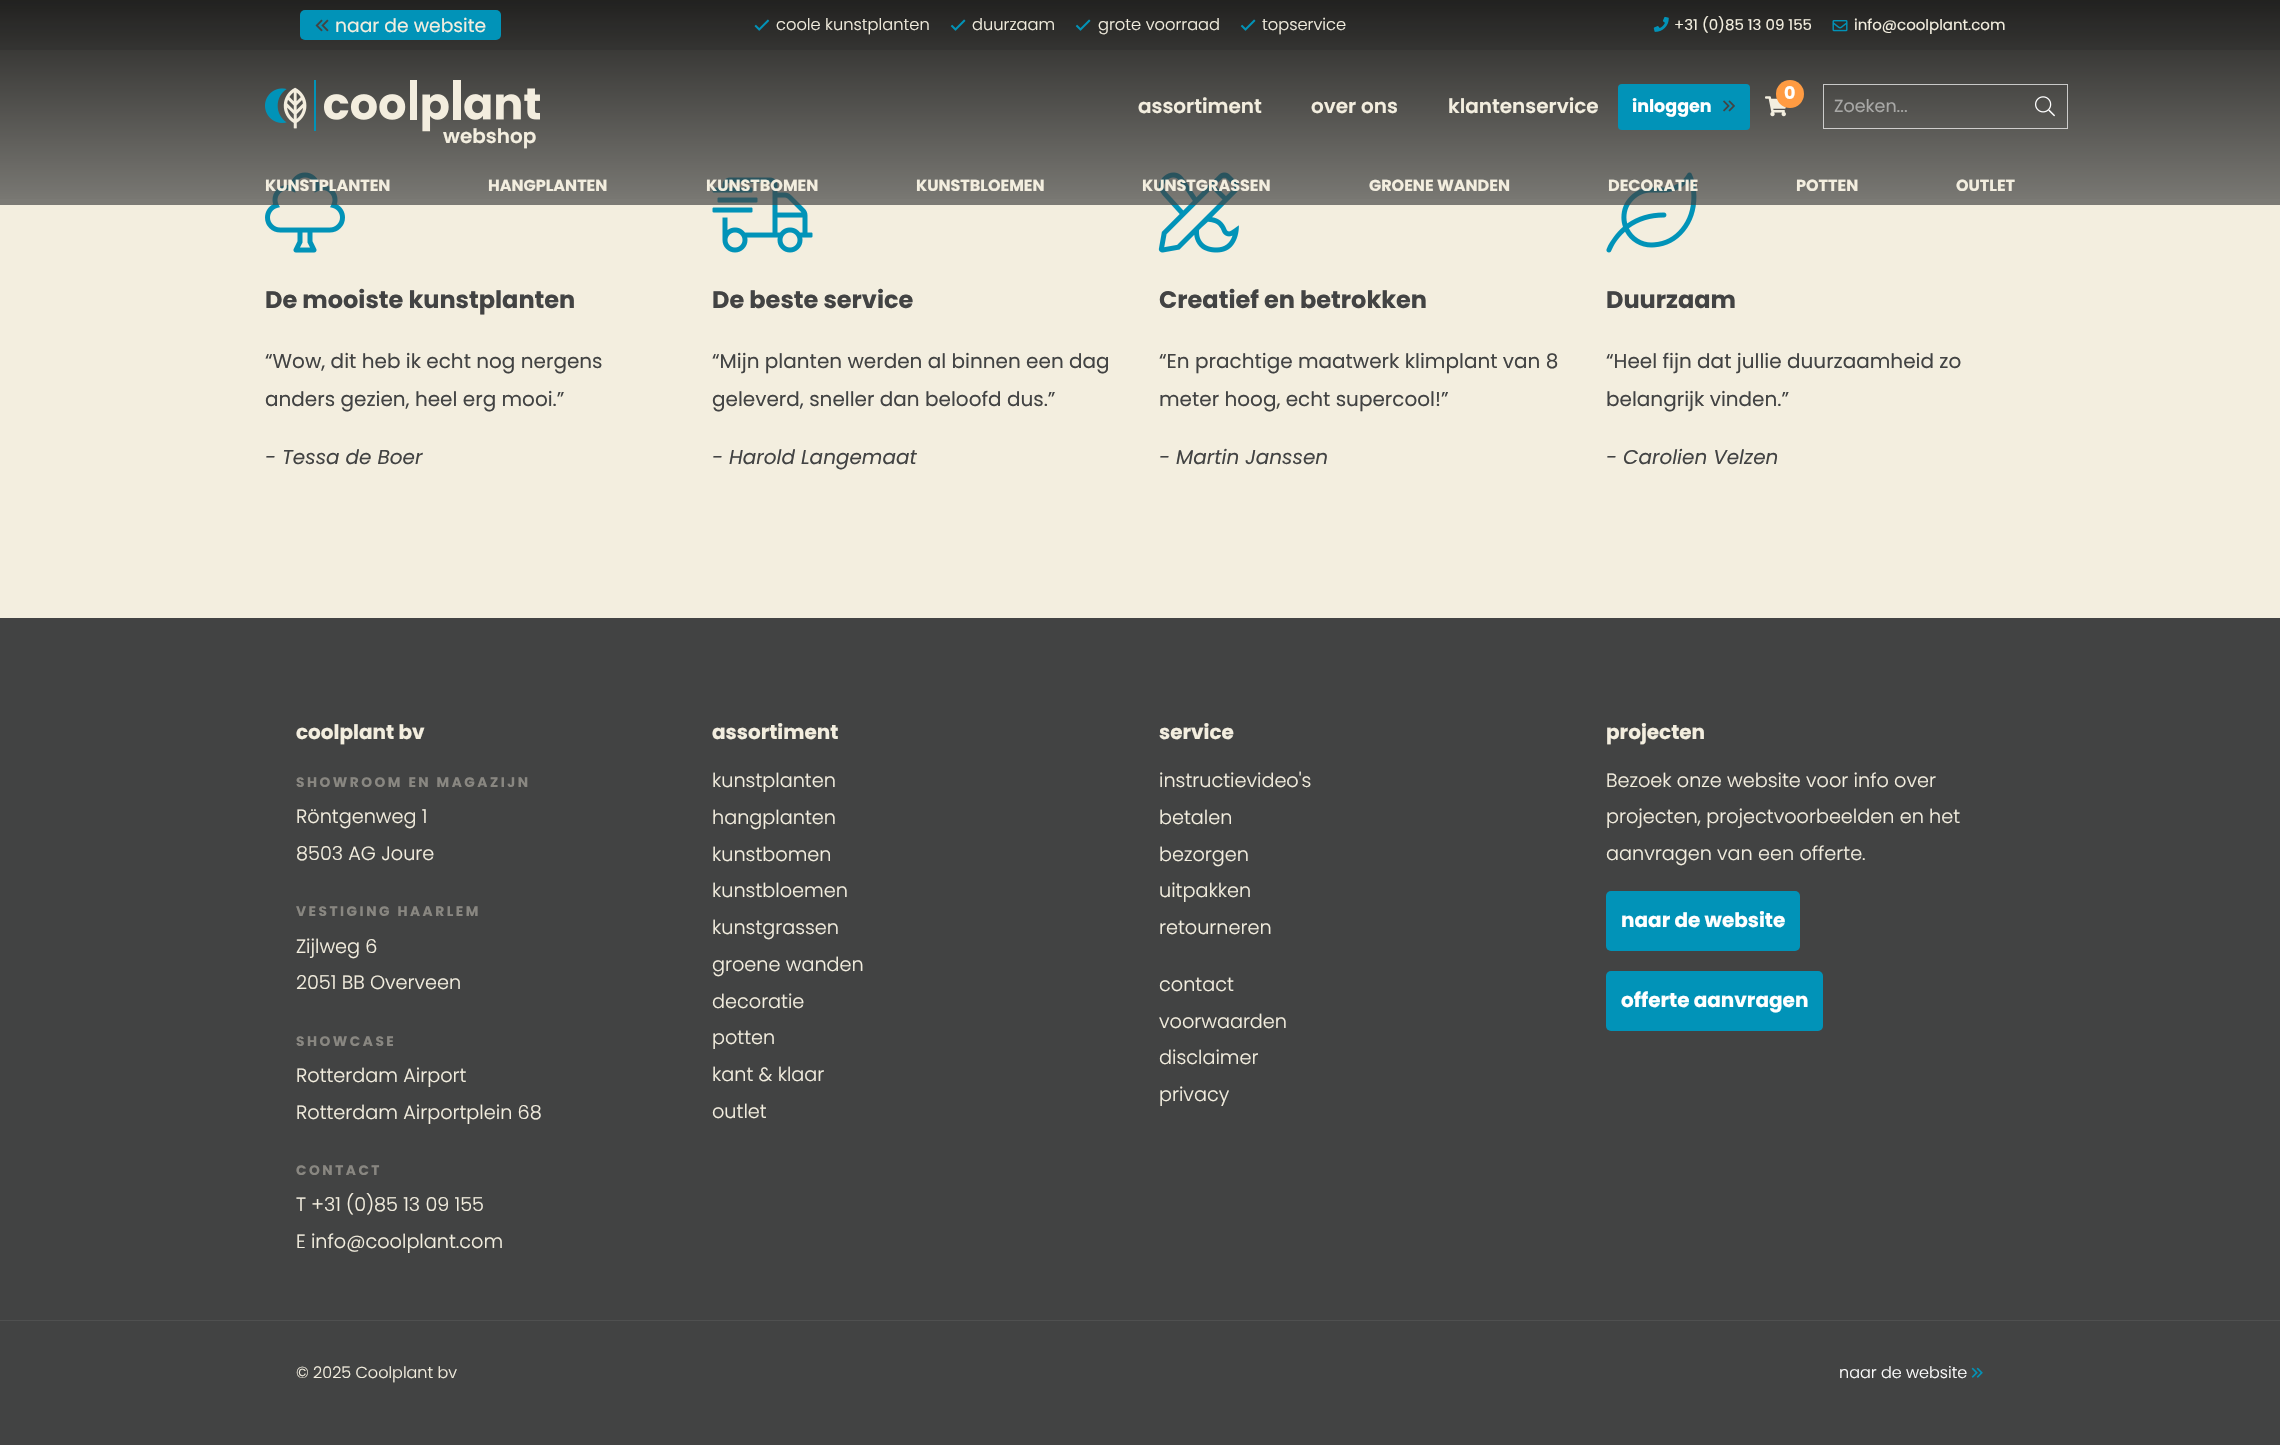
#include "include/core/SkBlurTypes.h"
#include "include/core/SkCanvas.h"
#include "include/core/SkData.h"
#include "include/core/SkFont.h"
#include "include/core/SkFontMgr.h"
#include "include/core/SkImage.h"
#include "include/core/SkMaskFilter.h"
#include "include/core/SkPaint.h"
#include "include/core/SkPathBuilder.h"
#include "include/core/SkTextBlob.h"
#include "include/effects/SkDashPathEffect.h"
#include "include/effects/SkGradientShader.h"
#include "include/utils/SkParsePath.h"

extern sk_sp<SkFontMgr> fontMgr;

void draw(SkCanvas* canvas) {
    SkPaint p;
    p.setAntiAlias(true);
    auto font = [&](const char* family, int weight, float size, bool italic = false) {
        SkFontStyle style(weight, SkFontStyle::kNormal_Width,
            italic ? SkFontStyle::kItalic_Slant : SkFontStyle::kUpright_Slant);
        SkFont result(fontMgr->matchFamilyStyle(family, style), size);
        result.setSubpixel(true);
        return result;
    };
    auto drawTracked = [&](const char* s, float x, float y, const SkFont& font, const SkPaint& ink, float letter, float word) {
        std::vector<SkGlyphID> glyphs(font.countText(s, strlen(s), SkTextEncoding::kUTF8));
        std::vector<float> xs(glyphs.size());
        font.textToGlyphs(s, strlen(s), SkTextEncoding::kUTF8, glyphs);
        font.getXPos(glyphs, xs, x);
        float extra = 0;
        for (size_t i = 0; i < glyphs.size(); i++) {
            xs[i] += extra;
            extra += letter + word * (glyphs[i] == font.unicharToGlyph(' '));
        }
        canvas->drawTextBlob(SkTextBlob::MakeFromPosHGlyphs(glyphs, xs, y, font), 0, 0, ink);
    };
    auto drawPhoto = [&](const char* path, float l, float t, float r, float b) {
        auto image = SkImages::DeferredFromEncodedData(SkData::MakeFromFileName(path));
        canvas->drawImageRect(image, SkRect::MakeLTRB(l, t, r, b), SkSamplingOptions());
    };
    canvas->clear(0xFFF3EEDF);
    drawPhoto("media/12.png", 265, 172, 345, 253);
    drawPhoto("media/13.png", 712, 177, 813, 253);
    drawPhoto("media/14.png", 1158, 172, 1239, 253);
    drawPhoto("media/15.png", 1606, 172, 1697, 253);
    p.setColor(0xAD424343);
    canvas->drawRect(SkRect::MakeLTRB(0, 0, 2280, 205), p);
    {
        const SkColor colors[] = {0x00000000, 0xB3000000};
        const float stops[] = {0, 1};
        const SkPoint ends[] = {{1140, 205}, {1140, 0}};
        p.setShader(SkGradientShader::MakeLinear(ends, colors, stops, 2, SkTileMode::kClamp));
        p.setAlpha(255);
    }
    canvas->drawRect(SkRect::MakeLTRB(0, 0, 2280, 199), p);
    p.setShader(nullptr);
    p.setColor(0x1A000000);
    canvas->drawRect(SkRect::MakeLTRB(0, 0, 2280, 50), p);
    p.setColor(0xFF0193B8);
    canvas->drawRoundRect(SkRect::MakeLTRB(300, 10, 501, 40), 5, 5, p);
    drawPhoto("media/1.png", 315, 19, 329, 32);
    auto font1 = font("Poppins", 400, 18.75f);
    p.setColor(0xFFF3EEDF);
    canvas->drawString("naar de website", 335, 32, font1, p);
    drawPhoto("media/2.png", 754, 19, 770, 31);
    auto font2 = font("Poppins", 300, 16.25f);
    canvas->drawString("coole kunstplanten", 776, 30, font2, p);
    drawPhoto("media/3.png", 950, 19, 966, 31);
    canvas->drawString("duurzaam", 972, 30, font2, p);
    drawPhoto("media/4.png", 1075, 19, 1091, 31);
    canvas->drawString("grote voorraad", 1098, 30, font2, p);
    drawPhoto("media/5.png", 1240, 19, 1256, 31);
    canvas->drawString("topservice", 1262, 30, font2, p);
    drawPhoto("media/6.png", 1653, 16, 1669, 32);
    auto font3 = font("Poppins", 400, 15);
    canvas->drawString("+31 (0)85 13 09 155", 1674, 30, font3, p);
    drawPhoto("media/7.png", 1832, 20, 1848, 32);
    canvas->drawString("info@coolplant.com", 1854, 30, font3, p);
    auto font4 = font("Poppins", 600, 20);
    {
        const struct { const char* s; float x, y; } items[] = {
            {"assortiment", 1138, 113},
            {"over ons", 1311, 113},
            {"klantenservice", 1448, 113},
        };
        for (auto [s, x, y] : items) {
            canvas->drawString(s, x, y, font4, p);
        }
    }
    drawPhoto("media/8.png", 1765, 96, 1786, 117);
    p.setColor(0xFFFF9B42);
    canvas->drawCircle(1790, 94, 14, p);
    auto font5 = font("Poppins", 700, 17.5f);
    p.setColor(0xFFFFFFFF);
    canvas->drawString("0", 1784, 99, font5, p);
    p.setColor(0xFF0193B8);
    canvas->drawRoundRect(SkRect::MakeLTRB(1618, 84, 1750, 130), 4, 4, p);
    p.setColor(0xFFFFFFFF);
    canvas->drawString("inloggen", 1632, 112, font5, p);
    drawPhoto("media/9.png", 1723, 100, 1735, 112);
    p.setStyle(SkPaint::kStroke_Style);
    p.setStrokeWidth(1);
    p.setColor(0xB3FFFFFF);
    canvas->drawRect(SkRect::MakeLTRB(1823.5f, 84.5f, 2067.5f, 128.5f), p);
    auto font6 = font("Poppins", 400, 17.5f);
    p.setStyle(SkPaint::kFill_Style);
    p.setColor(0xFFA8A8A6);
    canvas->drawString("Zoeken...", 1834, 112, font6, p);
    drawPhoto("media/10.png", 2035, 96, 2055, 117);
    p.setColor(0xFFF3EEDF);
    canvas->drawString("webshop", 443, 143, font4, p);
    drawPhoto("media/11.png", 265, 80, 540, 132);
    auto font7 = font("Poppins", 700, 16);
    {
        const struct { const char* s; float x, y; } items[] = {
            {"KUNSTPLANTEN", 265, 191},
            {"HANGPLANTEN", 488, 191},
            {"KUNSTBOMEN", 706, 191},
            {"KUNSTBLOEMEN", 916, 191},
            {"KUNSTGRASSEN", 1142, 191},
            {"GROENE WANDEN", 1369, 191},
            {"DECORATIE", 1608, 191},
            {"POTTEN", 1796, 191},
            {"OUTLET", 1956, 191},
        };
        for (auto [s, x, y] : items) {
            canvas->drawString(s, x, y, font7, p);
        }
    }
    auto font8 = font("Poppins", 700, 24);
    p.setColor(0xFF424343);
    canvas->drawString("De mooiste kunstplanten", 265, 308, font8, p);
    auto font9 = font("Poppins", 400, 20);
    canvas->drawString("“Wow, dit heb ik echt nog nergens", 265, 368, font9, p);
    canvas->drawString("anders gezien, heel erg mooi.”", 265, 406, font9, p);
    auto font10 = font("Poppins", 400, 20, true);
    canvas->drawString("- Tessa de Boer", 265, 464, font10, p);
    canvas->drawString("De beste service", 712, 308, font8, p);
    canvas->drawString("“Mijn planten werden al binnen een dag", 712, 368, font9, p);
    canvas->drawString("geleverd, sneller dan beloofd dus.”", 712, 406, font9, p);
    canvas->drawString("- Harold Langemaat", 712, 464, font10, p);
    canvas->drawString("Creatief en betrokken", 1159, 308, font8, p);
    canvas->drawString("“En prachtige maatwerk klimplant van 8", 1159, 368, font9, p);
    canvas->drawString("meter hoog, echt supercool!”", 1159, 406, font9, p);
    canvas->drawString("- Martin Janssen", 1159, 464, font10, p);
    canvas->drawString("Duurzaam", 1606, 308, font8, p);
    canvas->drawString("“Heel fijn dat jullie duurzaamheid zo", 1606, 368, font9, p);
    canvas->drawString("belangrijk vinden.”", 1606, 406, font9, p);
    canvas->drawString("- Carolien Velzen", 1606, 464, font10, p);
    canvas->drawRect(SkRect::MakeLTRB(0, 618, 2280, 1445), p);
    auto font11 = font("Poppins", 700, 20);
    p.setColor(0xFFF3EEDF);
    canvas->drawString("coolplant bv", 296, 739, font11, p);
    auto font12 = font("Poppins", 700, 13.75f);
    p.setColor(0xFF898781);
    drawTracked("SHOWROOM EN MAGAZIJN", 296, 787, font12, p, 2.5f, 0);
    auto font13 = font("Poppins", 300, 19.25f);
    p.setColor(0xFFF3EEDF);
    canvas->drawString("Röntgenweg 1", 296, 823, font13, p);
    canvas->drawString("8503 AG Joure", 296, 860, font13, p);
    p.setColor(0xFF898781);
    drawTracked("VESTIGING HAARLEM", 296, 916, font12, p, 2.5f, 0);
    p.setColor(0xFFF3EEDF);
    canvas->drawString("Zijlweg 6", 296, 953, font13, p);
    canvas->drawString("2051 BB Overveen", 296, 989, font13, p);
    p.setColor(0xFF898781);
    drawTracked("SHOWCASE", 296, 1046, font12, p, 2.5f, 0);
    p.setColor(0xFFF3EEDF);
    canvas->drawString("Rotterdam Airport", 296, 1082, font13, p);
    canvas->drawString("Rotterdam Airportplein 68", 296, 1119, font13, p);
    p.setColor(0xFF898781);
    drawTracked("CONTACT", 296, 1175, font12, p, 2.5f, 0);
    p.setColor(0xFFF3EEDF);
    canvas->drawString("T +31 (0)85 13 09 155", 296, 1211, font13, p);
    canvas->drawString("E info@coolplant.com", 296, 1248, font13, p);
    canvas->drawString("assortiment", 712, 739, font11, p);
    {
        const struct { const char* s; float x, y; } items[] = {
            {"kunstplanten", 712, 787},
            {"hangplanten", 712, 824},
            {"kunstbomen", 712, 861},
            {"kunstbloemen", 712, 897},
            {"kunstgrassen", 712, 934},
            {"groene wanden", 712, 971},
            {"decoratie", 712, 1008},
            {"potten", 712, 1044},
            {"kant & klaar", 712, 1081},
            {"outlet", 712, 1118},
        };
        for (auto [s, x, y] : items) {
            canvas->drawString(s, x, y, font13, p);
        }
    }
    canvas->drawString("service", 1159, 739, font11, p);
    {
        const struct { const char* s; float x, y; } items[] = {
            {"instructievideo's", 1159, 787},
            {"betalen", 1159, 824},
            {"bezorgen", 1159, 861},
            {"uitpakken", 1159, 897},
            {"retourneren", 1159, 934},
            {"contact", 1159, 991},
            {"voorwaarden", 1159, 1028},
            {"disclaimer", 1159, 1064},
            {"privacy", 1159, 1101},
        };
        for (auto [s, x, y] : items) {
            canvas->drawString(s, x, y, font13, p);
        }
    }
    canvas->drawString("projecten", 1606, 739, font11, p);
    {
        const struct { const char* s; float x, y; } items[] = {
            {"Bezoek onze website voor info over", 1606, 787},
            {"projecten, projectvoorbeelden en het", 1606, 823},
            {"aanvragen van een offerte.", 1606, 860},
        };
        for (auto [s, x, y] : items) {
            canvas->drawString(s, x, y, font13, p);
        }
    }
    p.setColor(0xFF0193B8);
    canvas->drawRoundRect(SkRect::MakeLTRB(1606, 891, 1800, 951), 5, 5, p);
    p.setColor(0xFFFFFFFF);
    canvas->drawString("naar de website", 1621, 927, font11, p);
    p.setColor(0xFF0193B8);
    canvas->drawRoundRect(SkRect::MakeLTRB(1606, 971, 1823, 1031), 5, 5, p);
    p.setColor(0xFFFFFFFF);
    canvas->drawString("offerte aanvragen", 1621, 1007, font11, p);
    p.setColor(0xFF4F5050);
    canvas->drawRect(SkRect::MakeLTRB(0, 1320, 2280, 1321), p);
    auto font14 = font("Poppins", 300, 16);
    p.setColor(0xFFF3EEDF);
    canvas->drawString("© 2025 Coolplant bv", 296, 1378, font14, p);
    p.setColor(0xFFFFFFFF);
    canvas->drawString("naar de website", 1839, 1378, font14, p);
    drawPhoto("media/16.png", 1971, 1367, 1983, 1378);
}
